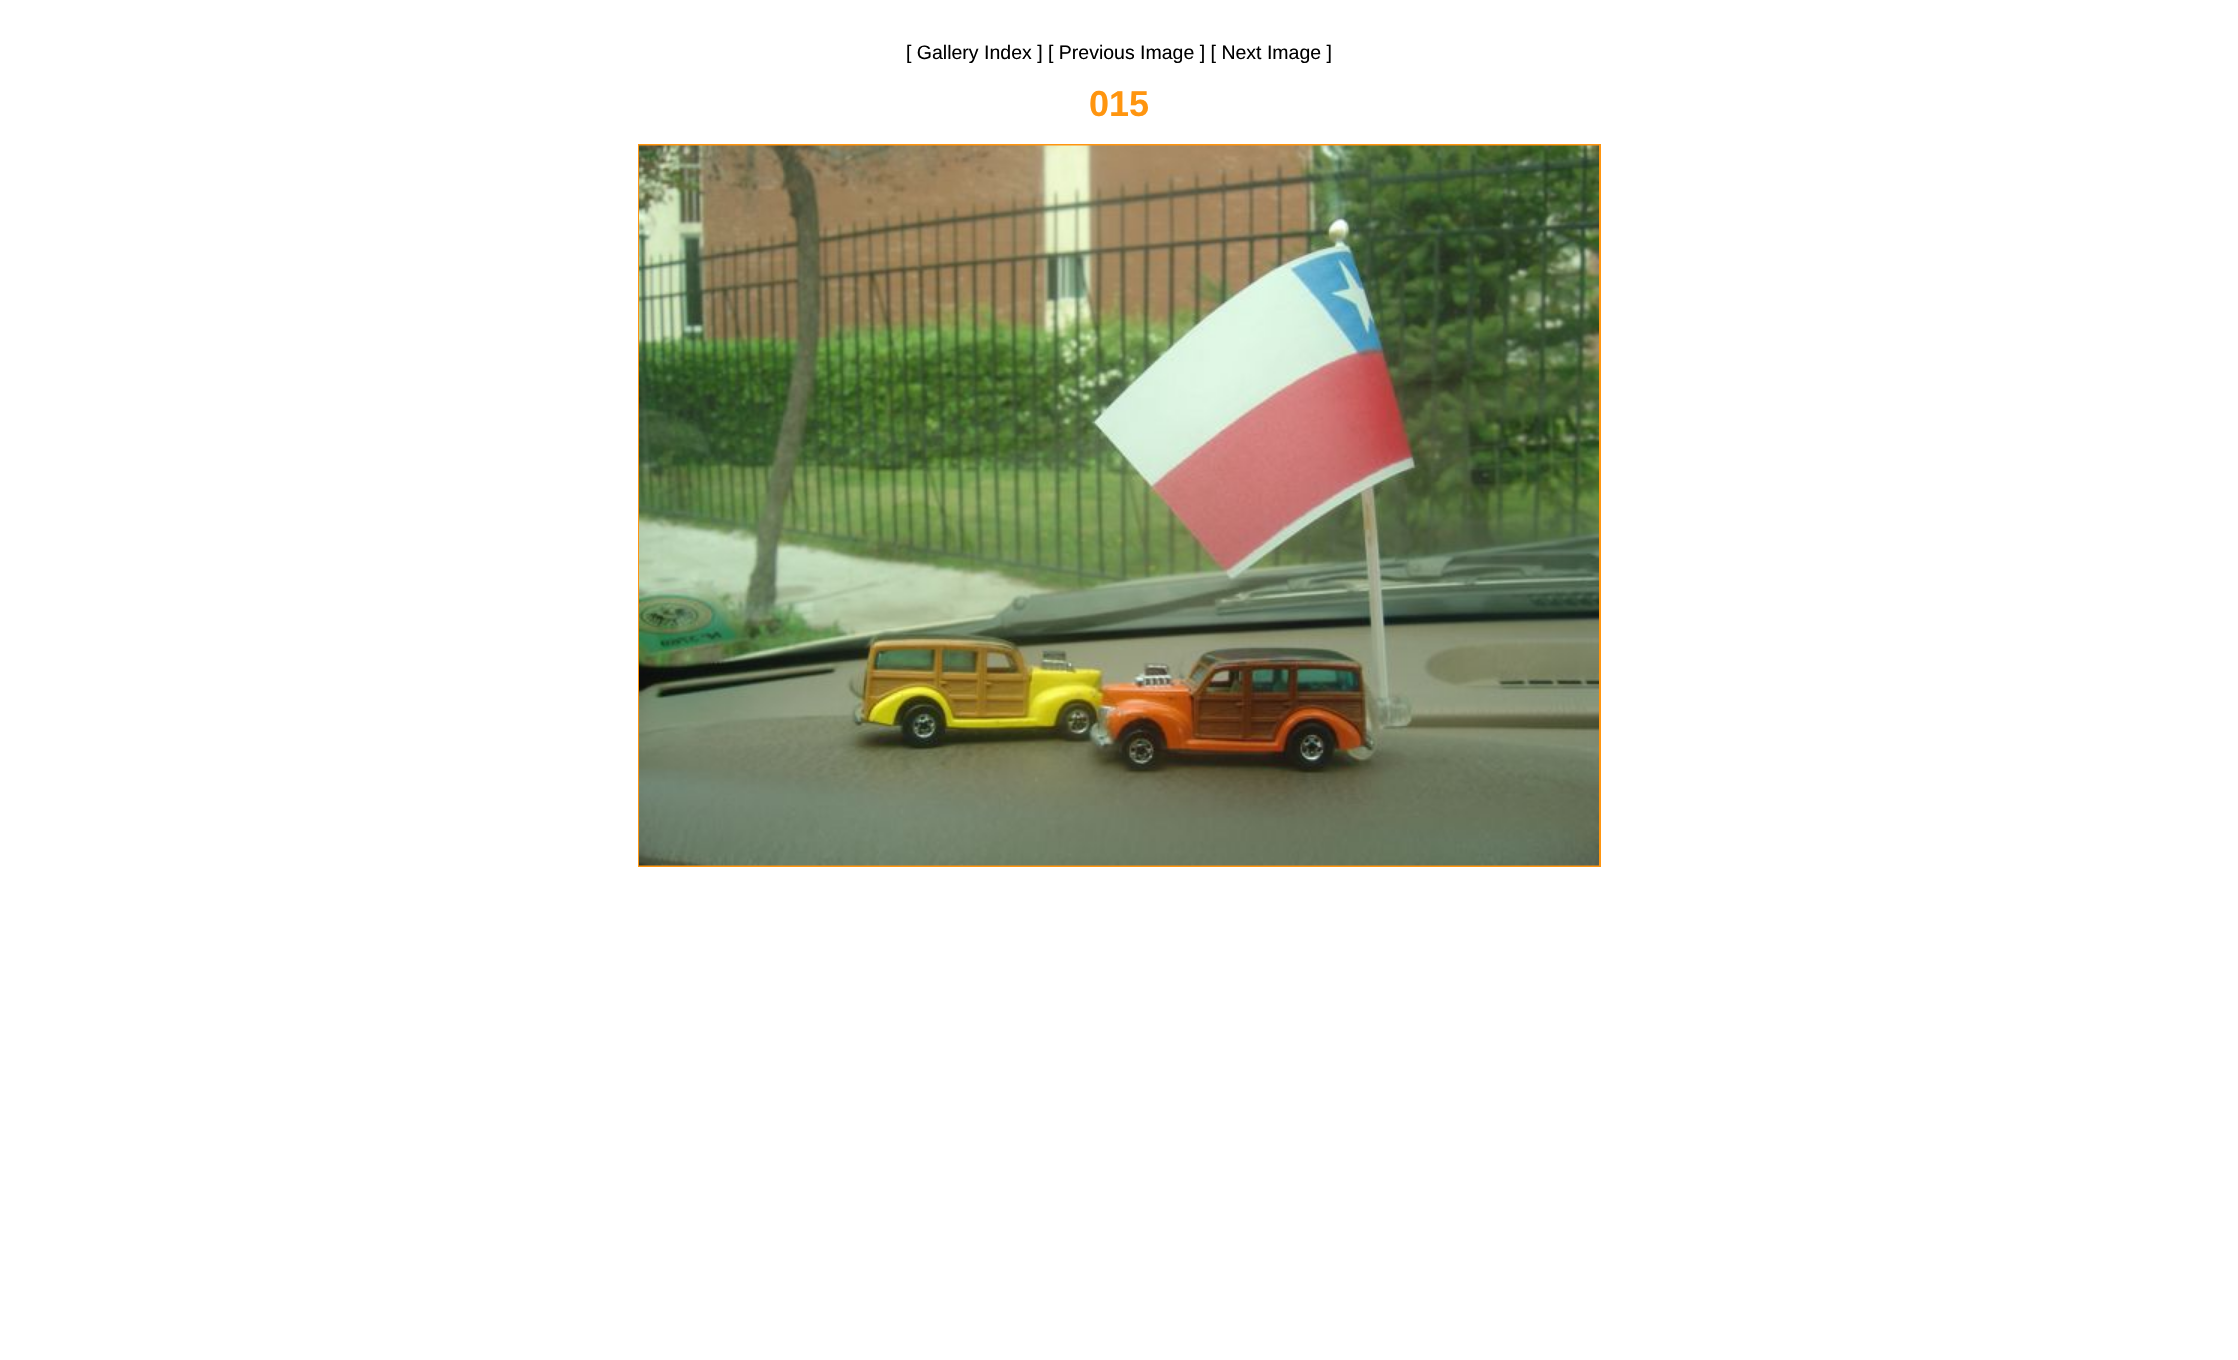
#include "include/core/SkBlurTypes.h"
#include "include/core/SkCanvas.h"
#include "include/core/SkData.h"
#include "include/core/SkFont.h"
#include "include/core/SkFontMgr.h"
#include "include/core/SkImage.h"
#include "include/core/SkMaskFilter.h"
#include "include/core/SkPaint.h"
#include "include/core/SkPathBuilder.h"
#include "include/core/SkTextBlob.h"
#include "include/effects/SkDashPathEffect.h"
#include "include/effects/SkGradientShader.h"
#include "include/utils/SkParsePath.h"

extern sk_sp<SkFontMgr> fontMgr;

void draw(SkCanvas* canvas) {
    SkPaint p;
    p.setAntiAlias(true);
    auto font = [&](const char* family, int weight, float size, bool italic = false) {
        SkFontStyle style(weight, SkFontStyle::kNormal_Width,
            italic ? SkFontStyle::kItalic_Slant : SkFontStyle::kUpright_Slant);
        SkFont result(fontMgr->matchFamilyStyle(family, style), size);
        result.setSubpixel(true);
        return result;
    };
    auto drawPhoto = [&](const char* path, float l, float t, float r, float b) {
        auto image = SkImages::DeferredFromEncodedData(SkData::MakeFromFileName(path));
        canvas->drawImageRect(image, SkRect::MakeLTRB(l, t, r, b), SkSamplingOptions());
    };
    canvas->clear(0xFFFFFFFF);
    auto font1 = font("Liberation Sans", 400, 19.5f);
    p.setColor(0xFF000000);
    canvas->drawString("[ Gallery Index ] [ Previous Image ] [ Next Image ]", 906, 59, font1, p);
    auto font2 = font("Liberation Sans", 700, 36);
    p.setColor(0xFFFF950F);
    canvas->drawString("015", 1089, 116, font2, p);
    p.setStyle(SkPaint::kStroke_Style);
    p.setStrokeWidth(2);
    canvas->drawRect(SkRect::MakeLTRB(639, 145, 1600, 866), p);
    drawPhoto("media/1.png", 639, 145, 1599, 866);
}
